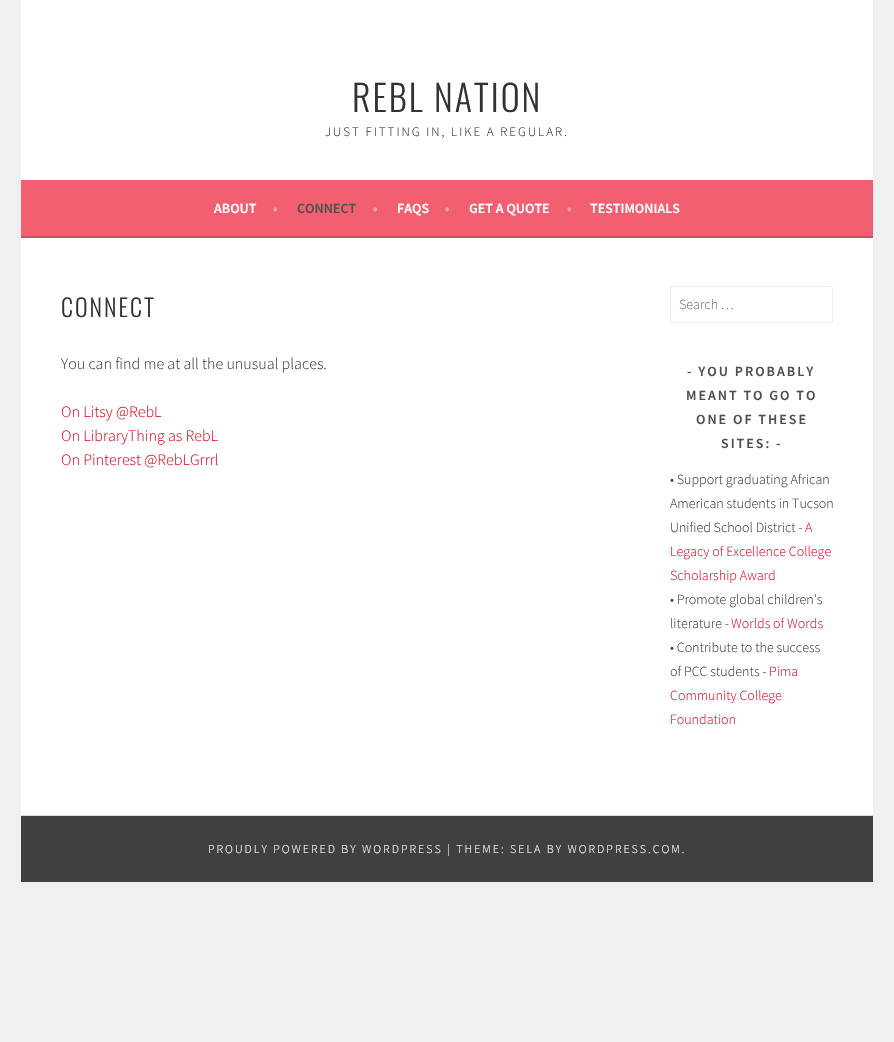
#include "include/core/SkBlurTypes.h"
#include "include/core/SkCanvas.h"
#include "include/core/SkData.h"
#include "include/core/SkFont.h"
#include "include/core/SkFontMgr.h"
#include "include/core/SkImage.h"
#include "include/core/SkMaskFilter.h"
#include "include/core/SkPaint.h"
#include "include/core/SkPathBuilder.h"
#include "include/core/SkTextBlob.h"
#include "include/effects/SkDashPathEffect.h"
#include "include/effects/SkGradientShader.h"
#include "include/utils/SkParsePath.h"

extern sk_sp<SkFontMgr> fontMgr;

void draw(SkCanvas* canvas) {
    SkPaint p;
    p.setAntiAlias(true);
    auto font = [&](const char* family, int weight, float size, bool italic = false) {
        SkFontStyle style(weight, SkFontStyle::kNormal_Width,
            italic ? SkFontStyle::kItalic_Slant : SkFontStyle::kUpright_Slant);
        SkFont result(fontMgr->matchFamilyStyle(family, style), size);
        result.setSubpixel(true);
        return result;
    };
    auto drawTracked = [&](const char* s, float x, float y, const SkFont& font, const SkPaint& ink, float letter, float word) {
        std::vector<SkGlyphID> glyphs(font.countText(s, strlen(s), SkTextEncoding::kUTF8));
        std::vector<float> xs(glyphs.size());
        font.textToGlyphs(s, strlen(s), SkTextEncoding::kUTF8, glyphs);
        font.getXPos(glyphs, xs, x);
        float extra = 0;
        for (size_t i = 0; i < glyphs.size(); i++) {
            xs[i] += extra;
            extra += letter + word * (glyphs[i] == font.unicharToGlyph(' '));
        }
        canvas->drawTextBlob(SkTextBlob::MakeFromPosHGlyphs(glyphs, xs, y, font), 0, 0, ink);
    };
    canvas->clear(0xFFF0F0F0);
    p.setColor(0xFFFFFFFF);
    canvas->drawRect(SkRect::MakeLTRB(21, 0, 873, 180), p);
    auto font1 = font("Oswald", 300, 36);
    p.setColor(0xFF333333);
    drawTracked("REBL NATION", 352, 112, font1, p, 2, 0);
    auto font2 = font("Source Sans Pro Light", 300, 13);
    drawTracked("JUST FITTING IN, LIKE A REGULAR.", 325, 136, font2, p, 2, 0);
    p.setColor(0xFFF25F70);
    canvas->drawRect(SkRect::MakeLTRB(21, 180, 873, 236), p);
    p.setColor(0xFFCE515F);
    canvas->drawRect(SkRect::MakeLTRB(21, 236, 873, 238), p);
    auto font3 = font("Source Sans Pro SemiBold", 600, 14);
    p.setColor(0xFFFFFFFF);
    canvas->drawString("ABOUT", 214, 213, font3, p);
    p.setColor(0xFFFFA4AD);
    canvas->drawString("•", 273, 213, font3, p);
    p.setColor(0xFF4F4F4F);
    canvas->drawString("CONNECT", 297, 213, font3, p);
    p.setColor(0xFFFFA4AD);
    canvas->drawString("•", 373, 213, font3, p);
    p.setColor(0xFFFFFFFF);
    canvas->drawString("FAQS", 397, 213, font3, p);
    p.setColor(0xFFFFA4AD);
    canvas->drawString("•", 445, 213, font3, p);
    p.setColor(0xFFFFFFFF);
    canvas->drawString("GET A QUOTE", 469, 213, font3, p);
    p.setColor(0xFFFFA4AD);
    canvas->drawString("•", 567, 213, font3, p);
    p.setColor(0xFFFFFFFF);
    canvas->drawString("TESTIMONIALS", 590, 213, font3, p);
    canvas->drawRect(SkRect::MakeLTRB(21, 238, 873, 815), p);
    auto font4 = font("Oswald", 300, 24);
    p.setColor(0xFF333333);
    drawTracked("CONNECT", 61, 317, font4, p, 2, 0);
    auto font5 = font("Source Sans Pro Light", 300, 16);
    p.setColor(0xFF404040);
    canvas->drawString("You can find me at all the unusual places.", 61, 369, font5, p);
    p.setColor(0xFFE1122A);
    {
        const struct { const char* s; float x, y; } items[] = {
            {"On Litsy @RebL", 61, 417},
            {"On LibraryThing as RebL", 61, 441},
            {"On Pinterest @RebLGrrrl", 61, 465},
        };
        for (auto [s, x, y] : items) {
            canvas->drawString(s, x, y, font5, p);
        }
    }
    p.setStyle(SkPaint::kStroke_Style);
    p.setStrokeWidth(1);
    p.setColor(0xFFEEEEEE);
    canvas->drawRoundRect(SkRect::MakeLTRB(670.5f, 286.5f, 832.5f, 322.5f), 1.5f, 1.5f, p);
    auto font6 = font("Source Sans Pro Light", 300, 14);
    p.setStyle(SkPaint::kFill_Style);
    p.setColor(0xFF757575);
    canvas->drawString("Search …", 679, 309, font6, p);
    p.setColor(0xFF4F4F4F);
    {
        const struct { const char* s; float x, y; } items[] = {
            {"- YOU PROBABLY", 687, 376},
            {"MEANT TO GO TO", 686, 400},
            {"ONE OF THESE", 696, 424},
            {"SITES: -", 721, 448},
        };
        for (auto [s, x, y] : items) {
            drawTracked(s, x, y, font3, p, 2, 0);
        }
    }
    p.setColor(0xFF404040);
    {
        const struct { const char* s; float x, y; } items[] = {
            {"• Support graduating African", 670, 484},
            {"American students in Tucson", 670, 508},
            {"Unified School District -", 670, 532},
        };
        for (auto [s, x, y] : items) {
            canvas->drawString(s, x, y, font6, p);
        }
    }
    p.setColor(0xFFE1122A);
    {
        const struct { const char* s; float x, y; } items[] = {
            {"A", 805, 532},
            {"Legacy of Excellence College", 670, 556},
            {"Scholarship Award", 670, 580},
        };
        for (auto [s, x, y] : items) {
            canvas->drawString(s, x, y, font6, p);
        }
    }
    p.setColor(0xFF404040);
    canvas->drawString("• Promote global children's", 670, 604, font6, p);
    canvas->drawString("literature -", 670, 628, font6, p);
    p.setColor(0xFFE1122A);
    canvas->drawString("Worlds of Words", 731, 628, font6, p);
    p.setColor(0xFF404040);
    canvas->drawString("• Contribute to the success", 670, 652, font6, p);
    canvas->drawString("of PCC students -", 670, 676, font6, p);
    p.setColor(0xFFE1122A);
    {
        const struct { const char* s; float x, y; } items[] = {
            {"Pima", 769, 676},
            {"Community College", 670, 700},
            {"Foundation", 670, 724},
        };
        for (auto [s, x, y] : items) {
            canvas->drawString(s, x, y, font6, p);
        }
    }
    p.setColor(0xFF404040);
    canvas->drawRect(SkRect::MakeLTRB(21, 816, 873, 882), p);
    p.setColor(0xFFD9D9D9);
    canvas->drawRect(SkRect::MakeLTRB(21, 815, 873, 816), p);
    auto font7 = font("Source Sans Pro Light", 300, 12);
    p.setColor(0xFFFFFFFF);
    drawTracked("PROUDLY POWERED BY WORDPRESS | THEME: SELA BY WORDPRESS.COM.", 208, 853, font7, p, 2, 0);
}
